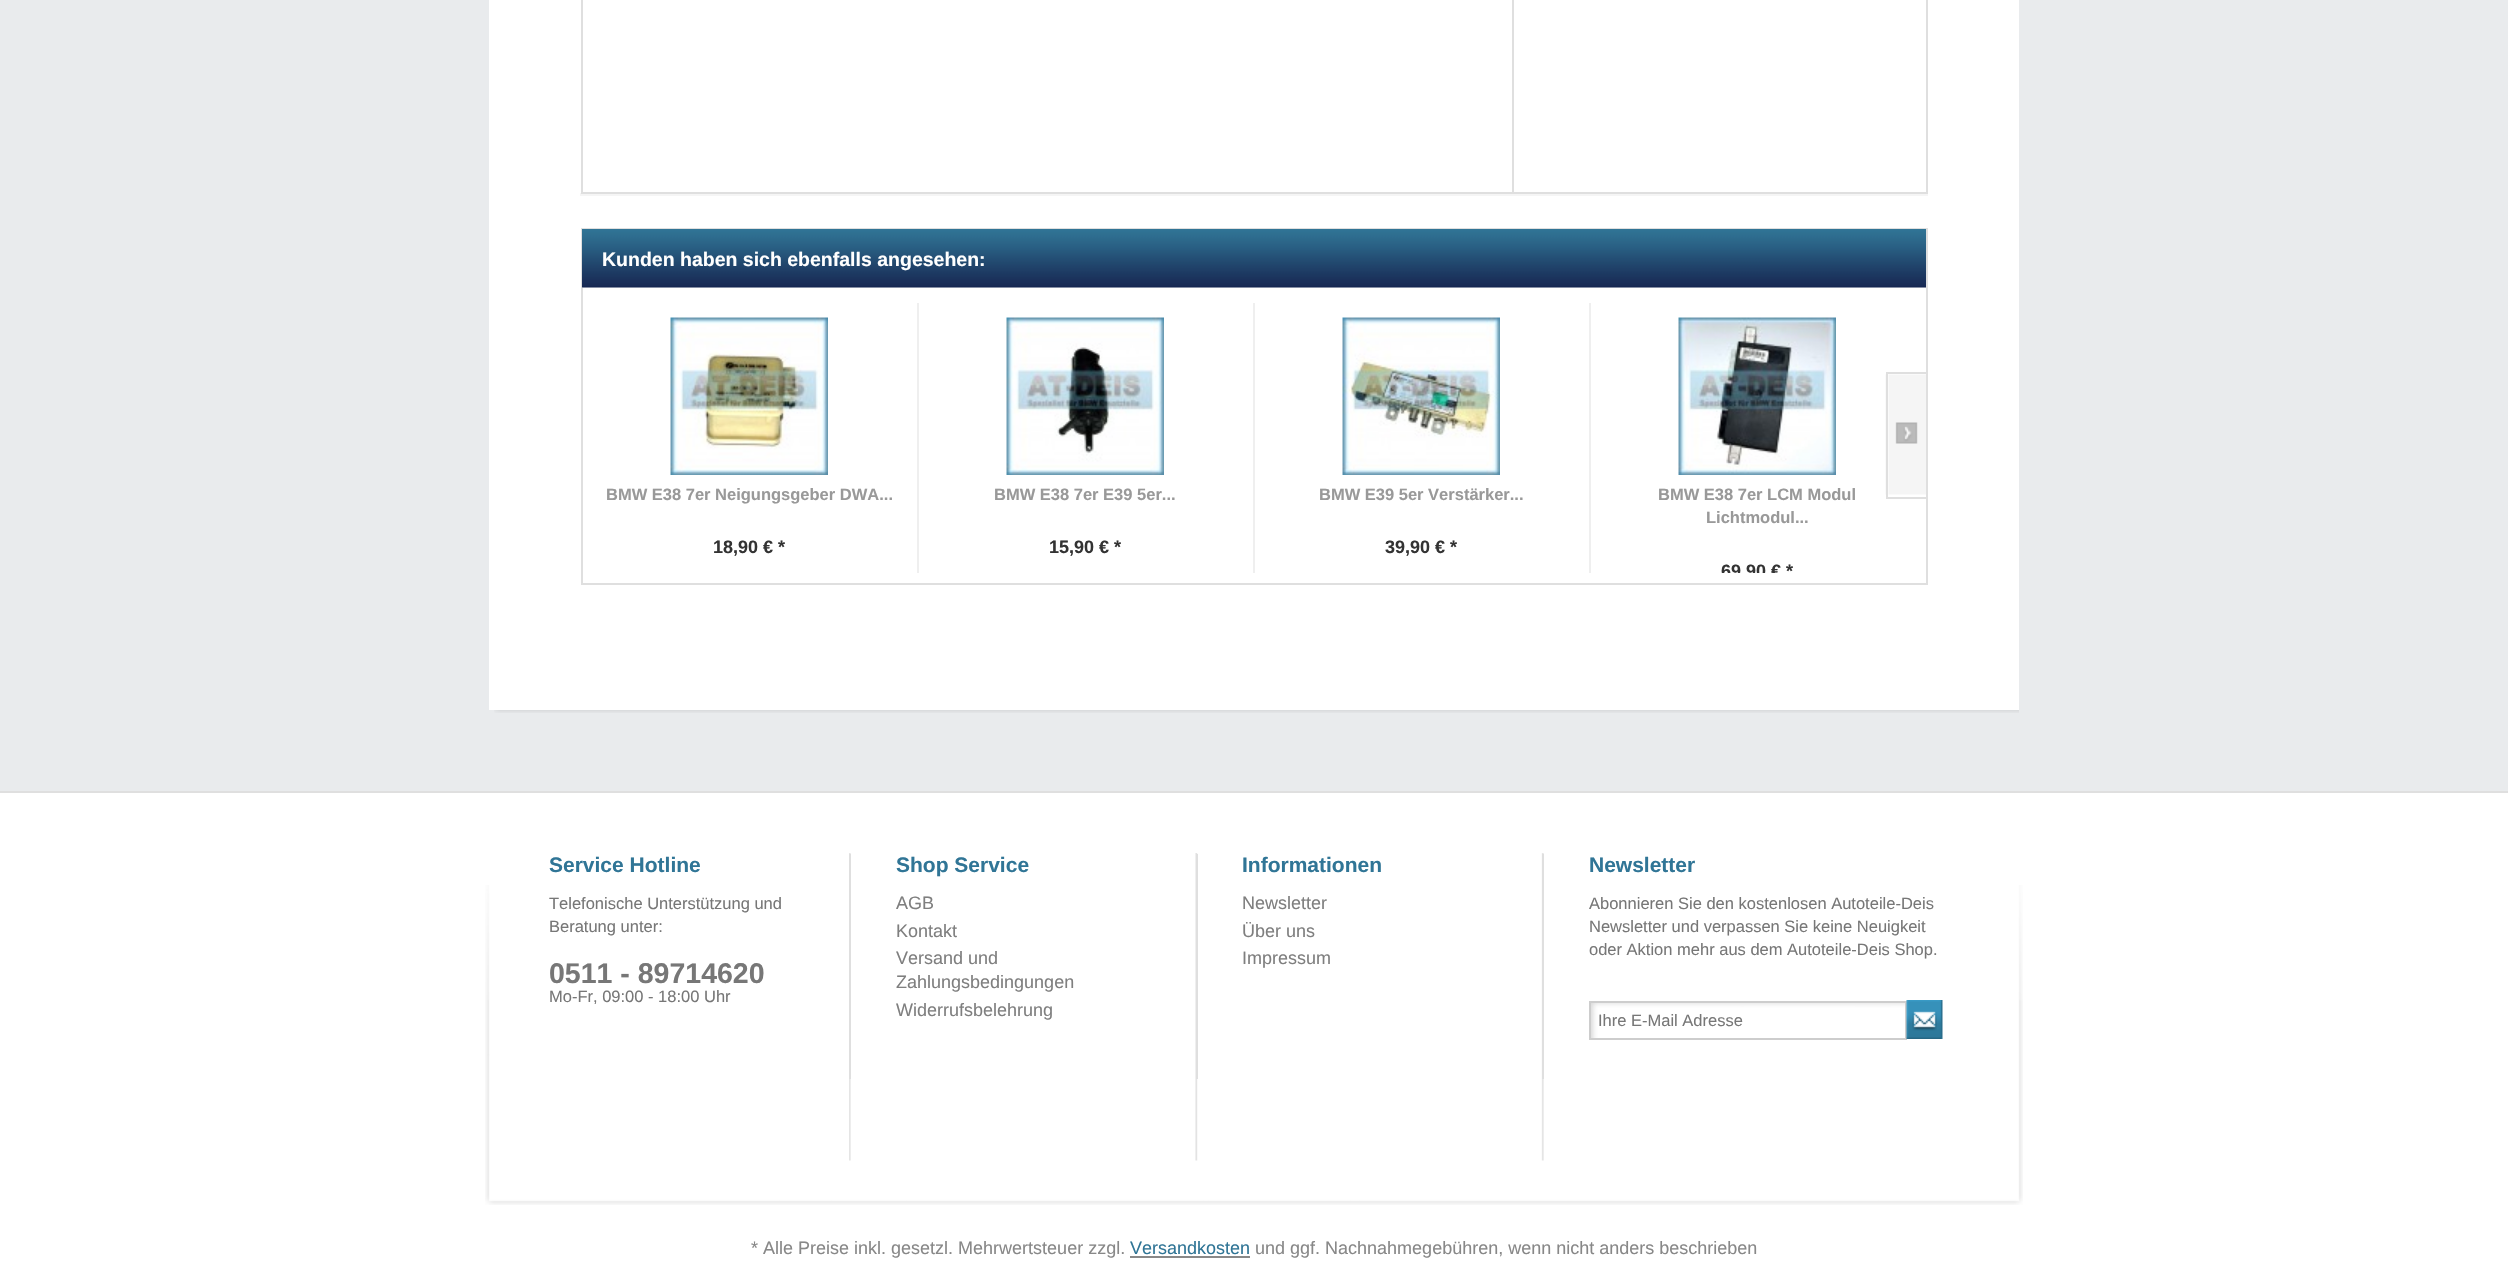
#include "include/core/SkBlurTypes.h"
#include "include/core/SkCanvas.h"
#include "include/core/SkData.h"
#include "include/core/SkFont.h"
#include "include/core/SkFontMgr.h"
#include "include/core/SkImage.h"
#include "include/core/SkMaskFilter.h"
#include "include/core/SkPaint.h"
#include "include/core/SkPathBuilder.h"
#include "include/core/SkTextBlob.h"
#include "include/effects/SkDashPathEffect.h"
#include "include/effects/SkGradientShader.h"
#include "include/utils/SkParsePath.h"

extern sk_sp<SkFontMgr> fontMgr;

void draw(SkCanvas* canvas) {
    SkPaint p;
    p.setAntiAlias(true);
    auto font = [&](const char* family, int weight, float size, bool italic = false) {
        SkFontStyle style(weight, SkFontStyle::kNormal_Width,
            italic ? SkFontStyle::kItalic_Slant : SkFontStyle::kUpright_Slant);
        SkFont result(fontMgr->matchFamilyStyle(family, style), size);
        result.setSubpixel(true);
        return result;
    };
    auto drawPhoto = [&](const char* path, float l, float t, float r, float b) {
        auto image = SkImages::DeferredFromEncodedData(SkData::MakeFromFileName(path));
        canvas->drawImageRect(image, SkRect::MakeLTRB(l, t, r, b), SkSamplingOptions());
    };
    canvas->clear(0xFFE9EBED);
    p.setColor(0xFFFFFFFF);
    canvas->drawRect(SkRect::MakeLTRB(489, 0, 2019, 710), p);
    p.setColor(0xFFF5F5F5);
    canvas->drawRect(SkRect::MakeLTRB(580, 193, 1928, 196), p);
    p.setStyle(SkPaint::kStroke_Style);
    p.setStrokeWidth(2);
    p.setColor(0xFFDFDFDF);
    canvas->drawRect(SkRect::MakeLTRB(582, -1, 1927, 193), p);
    p.setStyle(SkPaint::kFill_Style);
    canvas->drawRect(SkRect::MakeLTRB(1512, 0, 1514, 192), p);
    p.setStyle(SkPaint::kStroke_Style);
    canvas->drawRect(SkRect::MakeLTRB(582, 229, 1927, 584), p);
    p.setStyle(SkPaint::kFill_Style);
    p.setColor(0xFFF5F5F5);
    canvas->drawRect(SkRect::MakeLTRB(582, 287, 1926, 288), p);
    drawPhoto("media/1.png", 582, 229, 1926, 288);
    auto font1 = font("Liberation Sans", 700, 19.5f);
    p.setColor(0xFFFFFFFF);
    canvas->drawString("Kunden haben sich ebenfalls angesehen:", 602, 266, font1, p);
    drawPhoto("media/2.png", 1885, 374, 1926, 495);
    {
        const struct { float l, t, r, b; SkColor color; } items[] = {
            {1886, 372, 1926, 374, 0xFFDFDFDF},
            {1886, 497, 1926, 499, 0xFFDFDFDF},
            {1886, 372, 1888, 498, 0xFFDFDFDF},
            {917, 303, 919, 573, 0xFFEFEFEF},
        };
        for (auto [l, t, r, b, color] : items) {
            p.setColor(color);
            canvas->drawRect(SkRect::MakeLTRB(l, t, r, b), p);
        }
    }
    drawPhoto("media/3.png", 670, 317, 828, 475);
    auto font2 = font("Liberation Sans", 700, 16.5f);
    p.setColor(0xFF999999);
    canvas->drawString("BMW E38 7er Neigungsgeber DWA...", 606, 500, font2, p);
    auto font3 = font("Liberation Sans", 700, 18);
    p.setColor(0xFF333333);
    canvas->drawString("18,90 € *", 713, 553, font3, p);
    p.setColor(0xFFEFEFEF);
    canvas->drawRect(SkRect::MakeLTRB(1253, 303, 1255, 573), p);
    drawPhoto("media/4.png", 1006, 317, 1164, 475);
    p.setColor(0xFF999999);
    canvas->drawString("BMW E38 7er E39 5er...", 994, 500, font2, p);
    p.setColor(0xFF333333);
    canvas->drawString("15,90 € *", 1049, 553, font3, p);
    p.setColor(0xFFEFEFEF);
    canvas->drawRect(SkRect::MakeLTRB(1589, 303, 1591, 573), p);
    drawPhoto("media/5.png", 1342, 317, 1500, 475);
    p.setColor(0xFF999999);
    canvas->drawString("BMW E39 5er Verstärker...", 1319, 500, font2, p);
    p.setColor(0xFF333333);
    canvas->drawString("39,90 € *", 1385, 553, font3, p);
    drawPhoto("media/6.png", 1678, 317, 1836, 475);
    p.setColor(0xFF999999);
    canvas->drawString("BMW E38 7er LCM Modul", 1658, 500, font2, p);
    canvas->drawString("Lichtmodul...", 1706, 523, font2, p);
    canvas->save();
    canvas->clipRect(SkRect::MakeLTRB(582, 288, 1926, 573));
    p.setColor(0xFF333333);
    canvas->drawString("69,90 € *", 1721, 577, font3, p);
    canvas->restore();
    drawPhoto("media/7.png", 494, 710, 2019, 713);
    p.setColor(0xFFFFFFFF);
    canvas->drawRect(SkRect::MakeLTRB(0, 793, 2508, 1266), p);
    p.setColor(0xFFDFDFDF);
    canvas->drawRect(SkRect::MakeLTRB(0, 791, 2508, 793), p);
    drawPhoto("media/8.png", 485, 885, 2023, 1205);
    drawPhoto("media/9.png", 849, 853, 1544, 1161);
    canvas->drawRect(SkRect::MakeLTRB(849, 854, 851, 1079), p);
    auto font4 = font("Liberation Sans", 700, 21);
    p.setColor(0xFF307596);
    canvas->drawString("Service Hotline", 549, 872, font4, p);
    auto font5 = font("Liberation Sans", 400, 16.5f);
    p.setColor(0xFF777777);
    canvas->drawString("Telefonische Unterstützung und", 549, 909, font5, p);
    canvas->drawString("Beratung unter:", 549, 932, font5, p);
    auto font6 = font("Liberation Sans", 700, 28.5f);
    canvas->drawString("0511 - 89714620", 549, 983, font6, p);
    canvas->drawString("Mo-Fr, 09:00 - 18:00 Uhr", 549, 1002, font5, p);
    p.setColor(0xFFDFDFDF);
    canvas->drawRect(SkRect::MakeLTRB(1196, 854, 1198, 1079), p);
    p.setColor(0xFF307596);
    canvas->drawString("Shop Service", 896, 872, font4, p);
    auto font7 = font("Liberation Sans", 400, 18);
    p.setColor(0xFF7F7F7F);
    {
        const struct { const char* s; float x, y; } items[] = {
            {"AGB", 896, 909},
            {"Kontakt", 896, 937},
            {"Versand und", 896, 964},
            {"Zahlungsbedingungen", 896, 988},
            {"Widerrufsbelehrung", 896, 1016},
        };
        for (auto [s, x, y] : items) {
            canvas->drawString(s, x, y, font7, p);
        }
    }
    p.setColor(0xFFDFDFDF);
    canvas->drawRect(SkRect::MakeLTRB(1542, 854, 1544, 1079), p);
    p.setColor(0xFF307596);
    canvas->drawString("Informationen", 1242, 872, font4, p);
    p.setColor(0xFF7F7F7F);
    {
        const struct { const char* s; float x, y; } items[] = {
            {"Newsletter", 1242, 909},
            {"Über uns", 1242, 937},
            {"Impressum", 1242, 964},
        };
        for (auto [s, x, y] : items) {
            canvas->drawString(s, x, y, font7, p);
        }
    }
    p.setColor(0xFF307596);
    canvas->drawString("Newsletter", 1589, 872, font4, p);
    p.setColor(0xFF777777);
    {
        const struct { const char* s; float x, y; } items[] = {
            {"Abonnieren Sie den kostenlosen Autoteile-Deis", 1589, 909},
            {"Newsletter und verpassen Sie keine Neuigkeit", 1589, 932},
            {"oder Aktion mehr aus dem Autoteile-Deis Shop.", 1589, 955},
        };
        for (auto [s, x, y] : items) {
            canvas->drawString(s, x, y, font5, p);
        }
    }
    drawPhoto("media/10.png", 1591, 1003, 1905, 1038);
    p.setStyle(SkPaint::kStroke_Style);
    p.setColor(0xFFCDCDCD);
    canvas->drawRect(SkRect::MakeLTRB(1590, 1002, 1906, 1039), p);
    p.setStyle(SkPaint::kFill_Style);
    p.setColor(0xFF777777);
    canvas->drawString("Ihre E-Mail Adresse", 1598, 1026, font5, p);
    drawPhoto("media/11.png", 1906, 1000, 1943, 1039);
    p.setColor(0xFF888888);
    canvas->drawString("* Alle Preise inkl. gesetzl. Mehrwertsteuer zzgl.", 751, 1254, font7, p);
    p.setColor(0xFF307596);
    canvas->drawString("Versandkosten", 1130, 1254, font7, p);
    p.setColor(0xFF888888);
    canvas->drawRect(SkRect::MakeLTRB(1130, 1256, 1250, 1258), p);
    canvas->drawString("und ggf. Nachnahmegebühren, wenn nicht anders beschrieben", 1255, 1254, font7, p);
}
